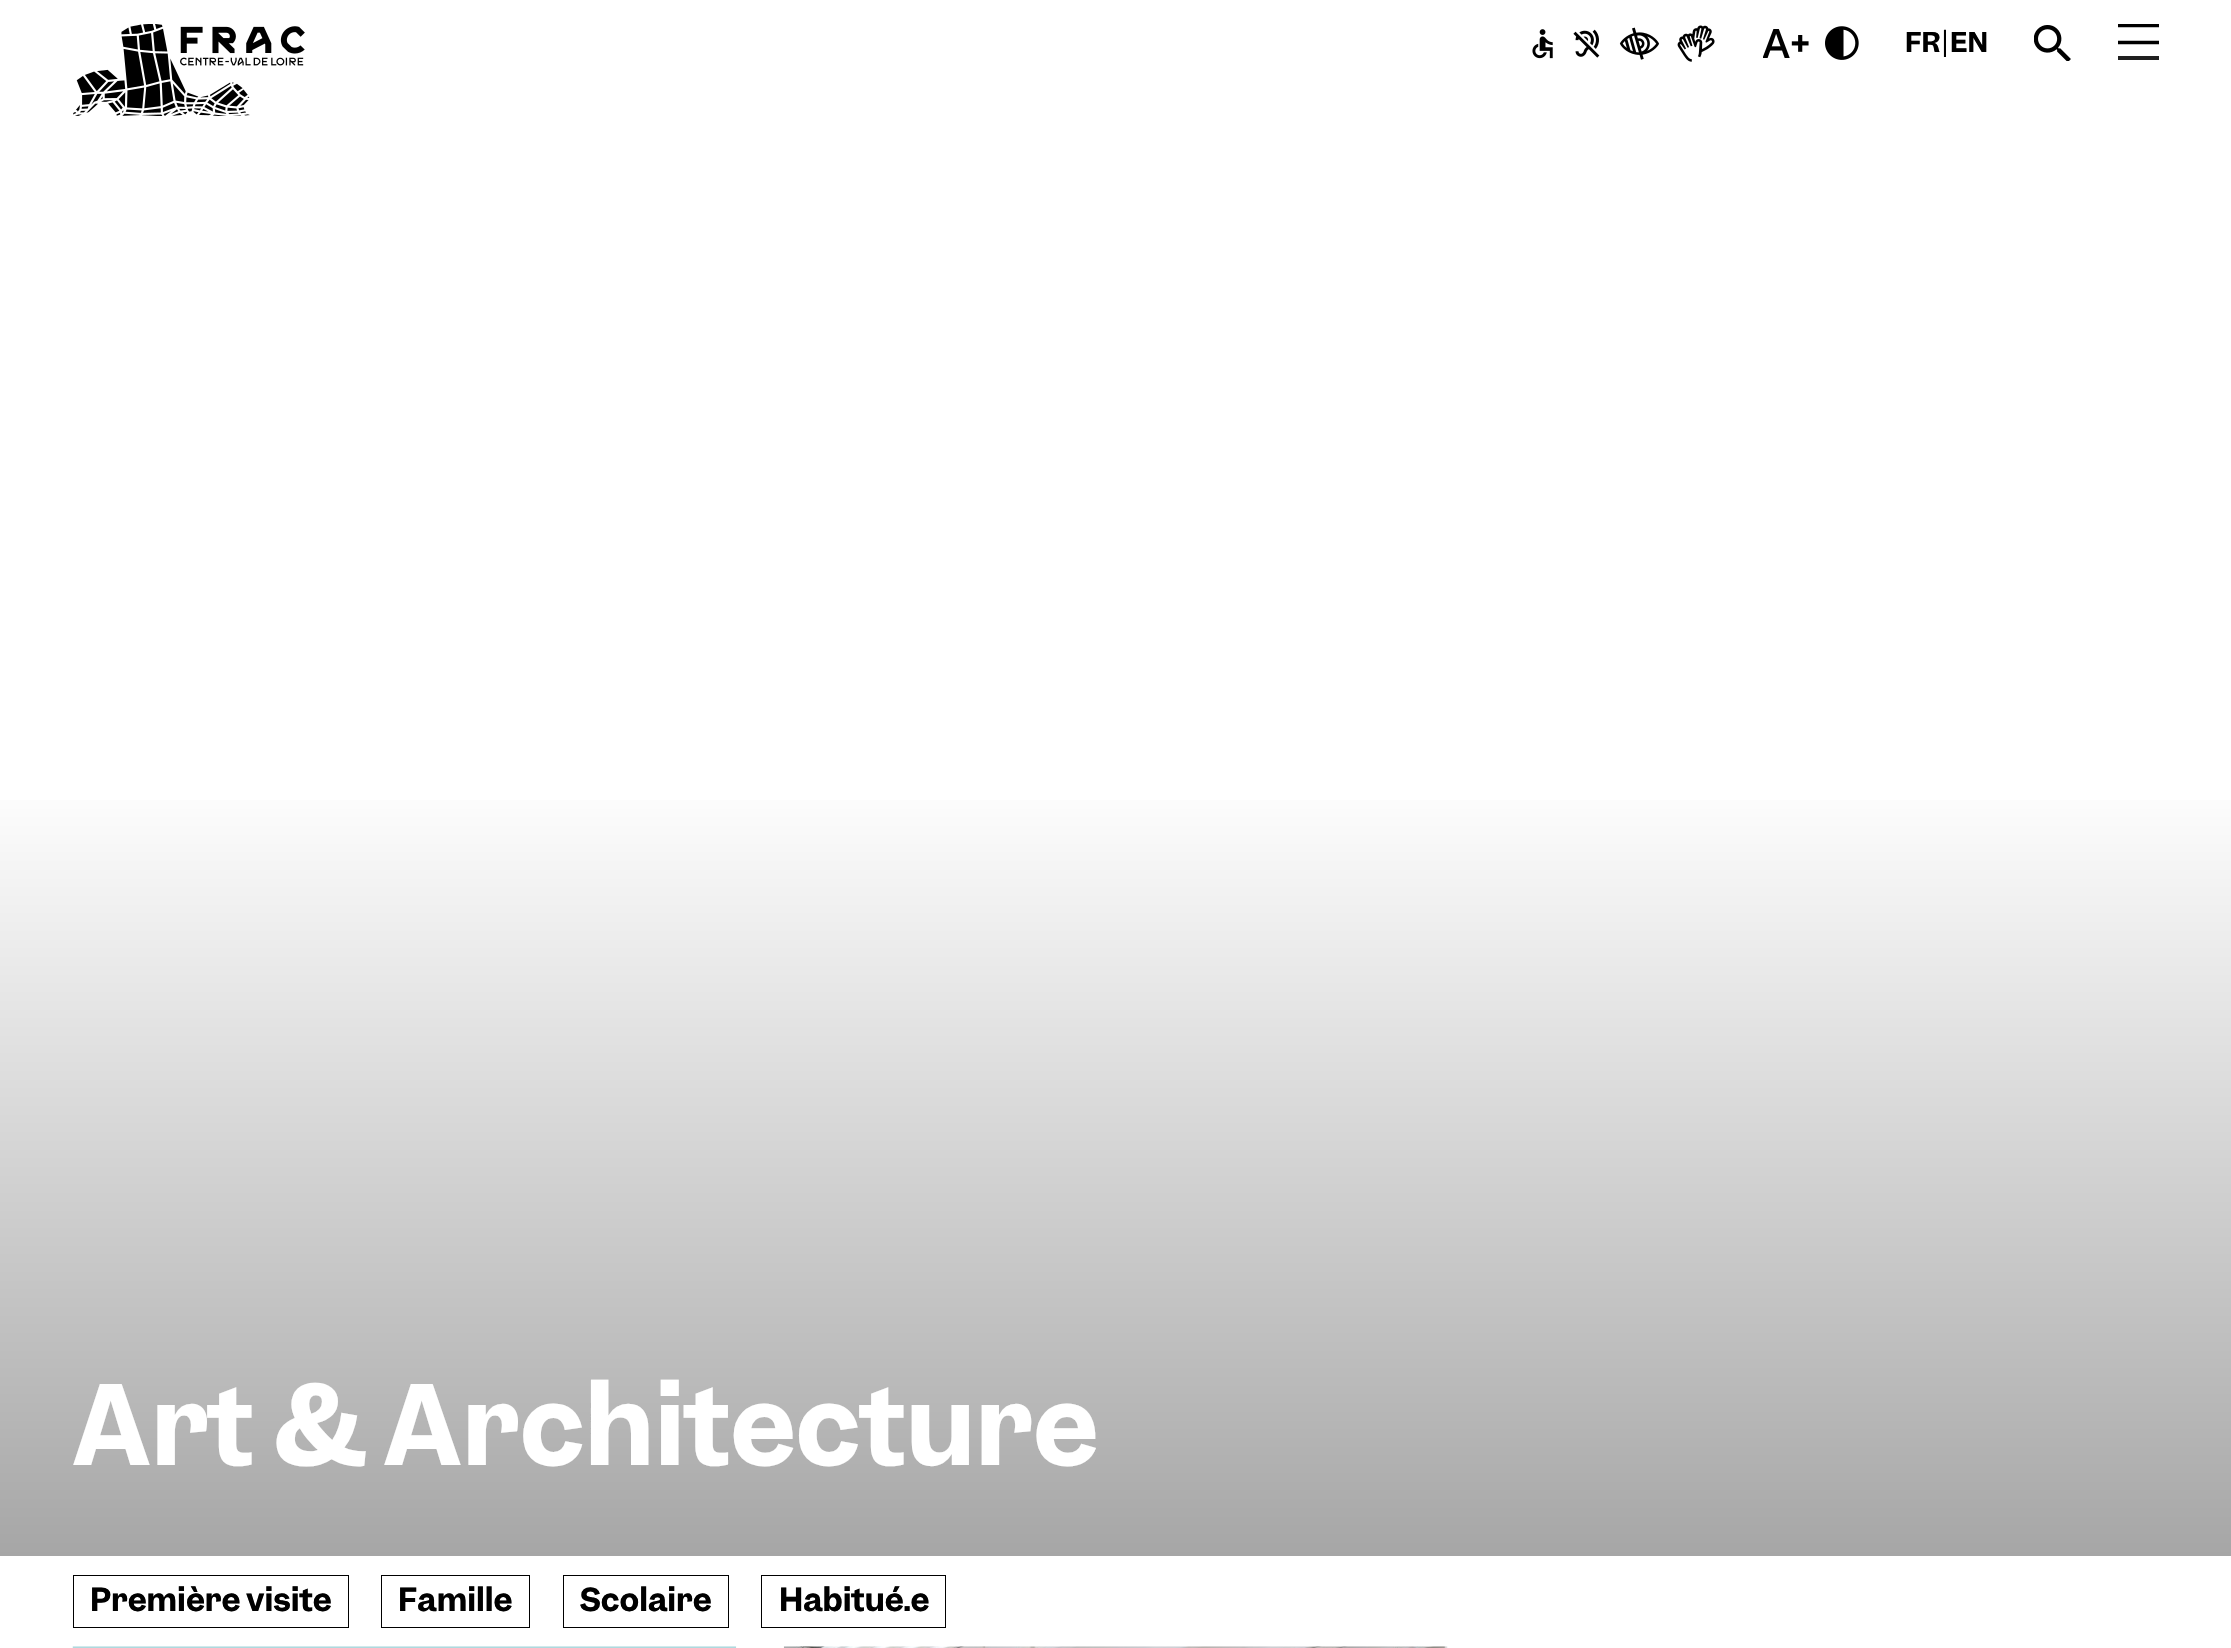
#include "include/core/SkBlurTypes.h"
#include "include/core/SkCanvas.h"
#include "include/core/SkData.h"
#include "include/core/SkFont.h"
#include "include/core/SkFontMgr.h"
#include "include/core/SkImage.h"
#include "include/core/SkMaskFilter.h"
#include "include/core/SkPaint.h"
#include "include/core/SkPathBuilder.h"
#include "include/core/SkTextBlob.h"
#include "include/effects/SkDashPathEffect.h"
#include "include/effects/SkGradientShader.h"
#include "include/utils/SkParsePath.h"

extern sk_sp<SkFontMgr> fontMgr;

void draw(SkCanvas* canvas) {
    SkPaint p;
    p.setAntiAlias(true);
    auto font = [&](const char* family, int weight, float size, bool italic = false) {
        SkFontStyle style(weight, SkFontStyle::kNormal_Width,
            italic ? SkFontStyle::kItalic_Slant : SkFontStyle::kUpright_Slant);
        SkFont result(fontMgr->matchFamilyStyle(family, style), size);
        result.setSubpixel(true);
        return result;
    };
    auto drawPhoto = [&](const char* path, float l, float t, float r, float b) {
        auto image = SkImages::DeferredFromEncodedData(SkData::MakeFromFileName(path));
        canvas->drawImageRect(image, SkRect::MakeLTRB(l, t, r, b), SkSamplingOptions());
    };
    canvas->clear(0xFFFFFFFF);
    drawPhoto("media/1.png", 73, 24, 305, 116);
    drawPhoto("media/2.png", 1532, 25, 1715, 62);
    drawPhoto("media/3.png", 1763, 29, 1809, 58);
    drawPhoto("media/4.png", 1825, 26, 1859, 60);
    auto font1 = font("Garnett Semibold", 600, 26);
    p.setColor(0xFF000000);
    canvas->drawString("FR", 1905, 52, font1, p);
    auto font2 = font("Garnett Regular", 400, 26);
    canvas->drawString("|", 1942, 51, font2, p);
    canvas->drawString("EN", 1950, 52, font1, p);
    drawPhoto("media/5.png", 2034, 25, 2071, 61);
    canvas->save();
    canvas->clipRect(SkRect::MakeLTRB(2118, 24, 2159, 60));
    p.setStyle(SkPaint::kStroke_Style);
    p.setStrokeWidth(3.5f);
    canvas->drawPath(SkPathBuilder().moveTo(2117.5f, 25.5f).lineTo(2159.5f, 25.5f).moveTo(2117.5f, 42.5f).lineTo(2159.5f, 42.5f).detach(), p);
    canvas->restore();
    p.setStyle(SkPaint::kFill_Style);
    p.setColor(0xFF202020);
    canvas->drawRect(SkRect::MakeLTRB(2118, 56, 2159, 60), p);
    {
        const SkColor colors[] = {0xFFA6A6A6, 0xFFFFFFFF};
        const float stops[] = {0, 1};
        const SkPoint ends[] = {{1116, 1556}, {1116, 778}};
        p.setShader(SkGradientShader::MakeLinear(ends, colors, stops, 2, SkTileMode::kClamp));
        p.setAlpha(255);
    }
    canvas->drawRect(SkRect::MakeLTRB(0, 800, 2231, 1556), p);
    auto font3 = font("Garnett Semibold", 600, 104.5f);
    p.setShader(nullptr);
    p.setColor(0xFFFFFFFF);
    canvas->drawString("Art & Architecture", 72, 1465, font3, p);
    p.setStyle(SkPaint::kStroke_Style);
    p.setStrokeWidth(1);
    p.setColor(0xFF000000);
    canvas->drawRect(SkRect::MakeLTRB(73.5f, 1575.5f, 348.5f, 1627.5f), p);
    auto font4 = font("Garnett Semibold", 600, 30.25f);
    p.setStyle(SkPaint::kFill_Style);
    canvas->drawString("Première visite", 90, 1611, font4, p);
    p.setStyle(SkPaint::kStroke_Style);
    canvas->drawRect(SkRect::MakeLTRB(381.5f, 1575.5f, 529.5f, 1627.5f), p);
    p.setStyle(SkPaint::kFill_Style);
    canvas->drawString("Famille", 398, 1611, font4, p);
    p.setStyle(SkPaint::kStroke_Style);
    canvas->drawRect(SkRect::MakeLTRB(563.5f, 1575.5f, 728.5f, 1627.5f), p);
    p.setStyle(SkPaint::kFill_Style);
    canvas->drawString("Scolaire", 580, 1611, font4, p);
    p.setStyle(SkPaint::kStroke_Style);
    canvas->drawRect(SkRect::MakeLTRB(761.5f, 1575.5f, 945.5f, 1627.5f), p);
    p.setStyle(SkPaint::kFill_Style);
    canvas->drawString("Habitué.e", 779, 1611, font4, p);
    drawPhoto("media/6.png", 72, 1646, 737, 1648);
    drawPhoto("media/7.png", 783, 1646, 1448, 1648);
}
